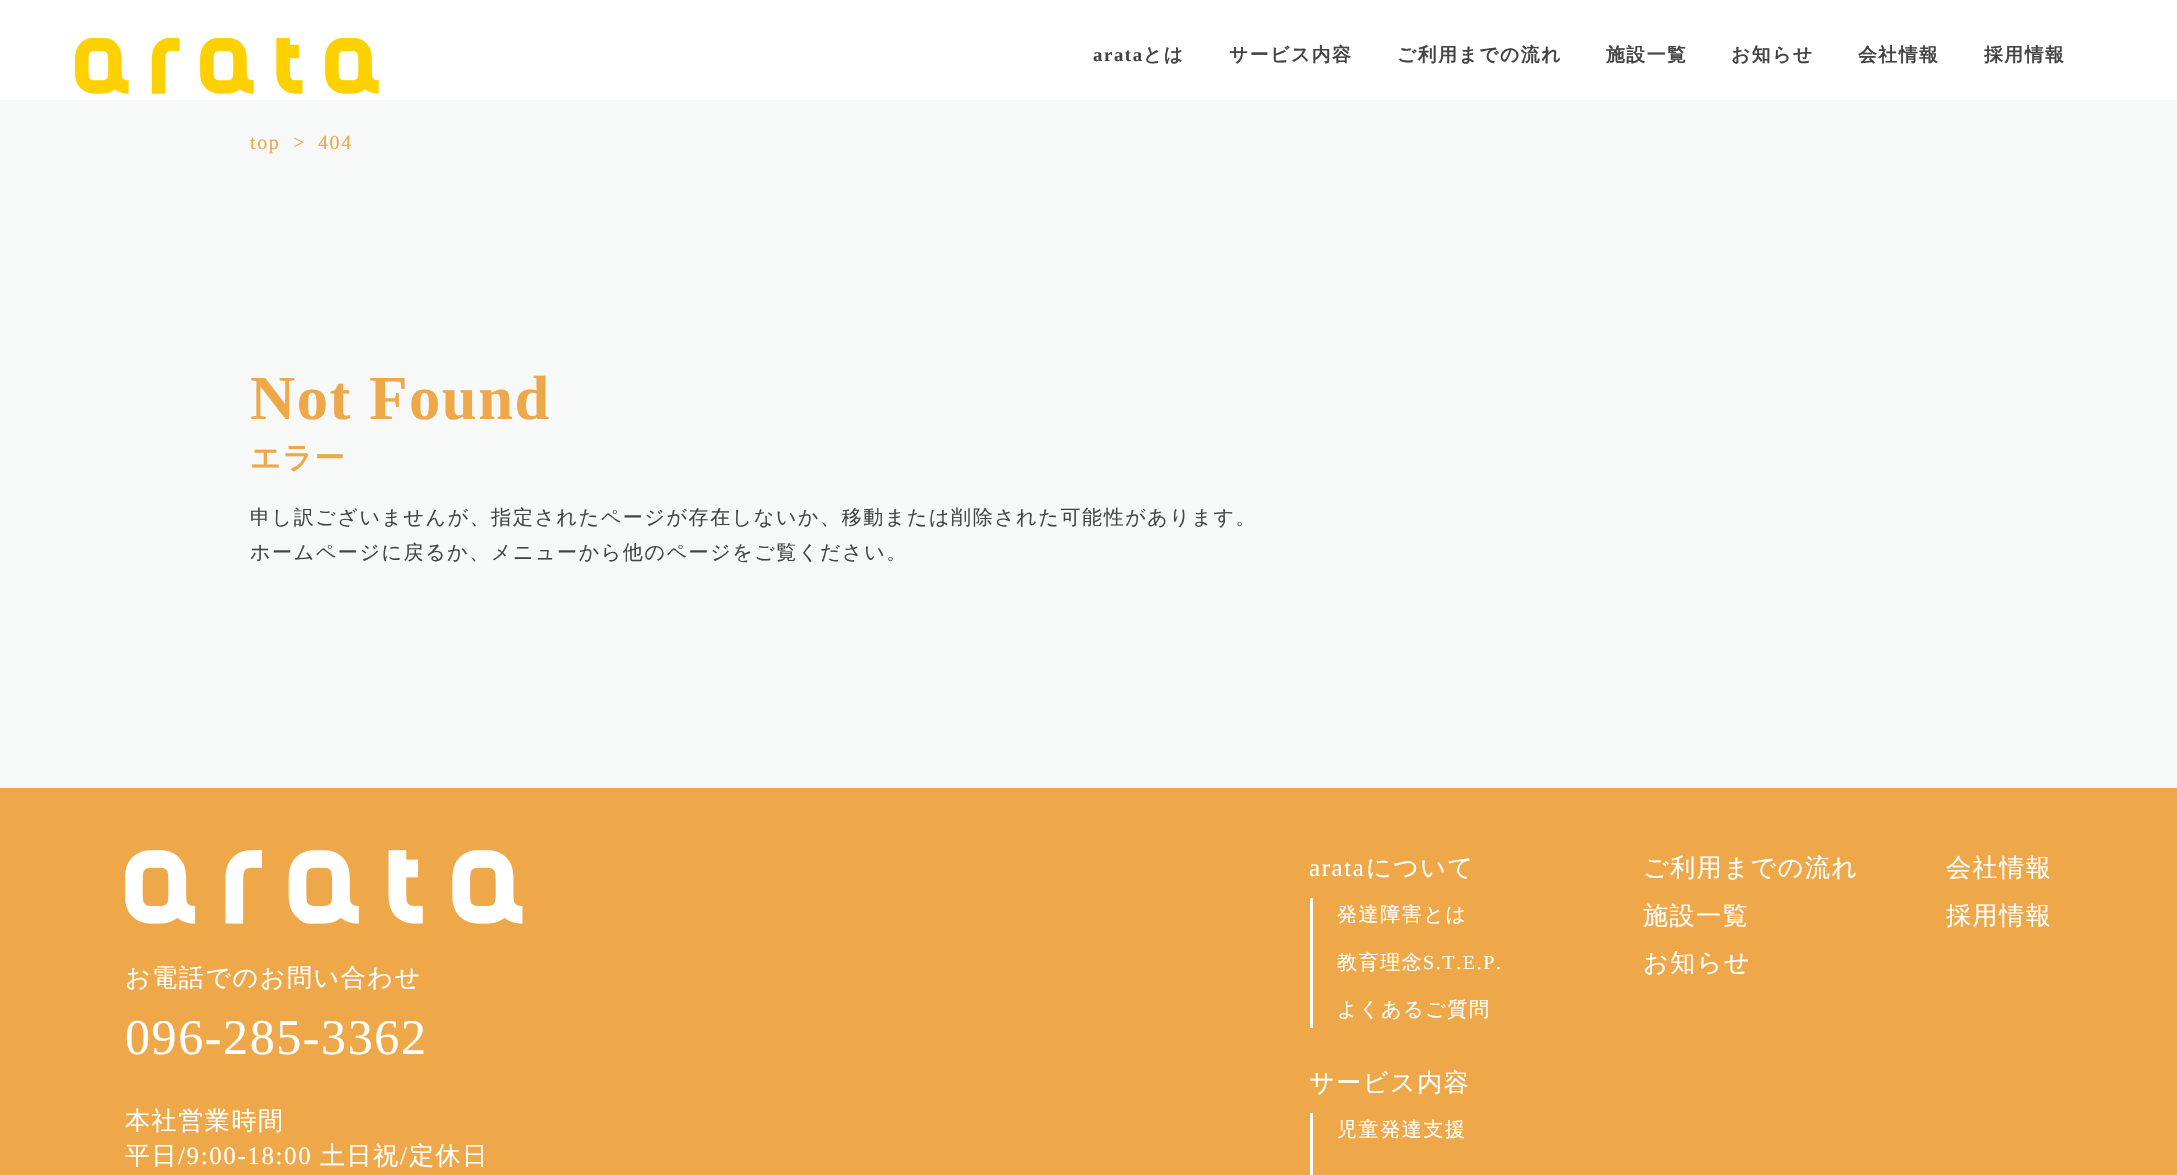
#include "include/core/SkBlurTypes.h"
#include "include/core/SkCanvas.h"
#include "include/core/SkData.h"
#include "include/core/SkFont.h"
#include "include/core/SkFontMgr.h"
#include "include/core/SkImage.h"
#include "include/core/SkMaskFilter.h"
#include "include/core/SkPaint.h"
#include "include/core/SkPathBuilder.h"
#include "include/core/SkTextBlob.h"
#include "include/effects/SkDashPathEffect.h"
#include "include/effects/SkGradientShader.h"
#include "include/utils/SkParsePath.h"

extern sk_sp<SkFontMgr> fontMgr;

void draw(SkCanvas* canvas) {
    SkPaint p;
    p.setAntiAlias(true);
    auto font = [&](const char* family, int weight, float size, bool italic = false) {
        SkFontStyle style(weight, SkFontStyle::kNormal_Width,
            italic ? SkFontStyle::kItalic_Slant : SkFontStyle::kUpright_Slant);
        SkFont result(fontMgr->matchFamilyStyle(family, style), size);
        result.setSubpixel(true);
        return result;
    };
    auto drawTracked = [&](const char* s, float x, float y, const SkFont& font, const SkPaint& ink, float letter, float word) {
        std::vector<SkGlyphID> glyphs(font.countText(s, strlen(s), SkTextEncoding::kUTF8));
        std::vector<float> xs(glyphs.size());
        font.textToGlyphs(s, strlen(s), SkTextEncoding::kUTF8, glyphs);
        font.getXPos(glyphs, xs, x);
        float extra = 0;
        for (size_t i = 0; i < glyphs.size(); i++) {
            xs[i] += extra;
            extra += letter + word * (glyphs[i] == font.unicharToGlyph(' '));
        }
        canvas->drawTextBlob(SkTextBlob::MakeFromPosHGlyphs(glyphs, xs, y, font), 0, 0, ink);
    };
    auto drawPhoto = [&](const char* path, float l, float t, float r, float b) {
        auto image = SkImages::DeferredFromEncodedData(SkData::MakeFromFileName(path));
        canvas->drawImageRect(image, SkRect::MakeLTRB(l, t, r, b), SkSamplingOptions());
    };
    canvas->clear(0xFFFFFFFF);
    drawPhoto("media/1.png", 75, 38, 379, 94);
    auto font1 = font("Liberation Serif", 700, 18.75f);
    p.setColor(0xFF444444);
    drawTracked("arata", 1093, 61, font1, p, 1.6f, 0);
    auto font2 = font("WenQuanYi Zen Hei", 700, 18.75f);
    {
        const struct { const char* s; float x, y; } items[] = {
            {"とは", 1143, 61},
            {"サービス内容", 1229, 61},
            {"ご利用までの流れ", 1397, 61},
            {"施設一覧", 1606, 61},
            {"お知らせ", 1731, 61},
            {"会社情報", 1858, 61},
            {"採用情報", 1984, 61},
        };
        for (auto [s, x, y] : items) {
            drawTracked(s, x, y, font2, p, 1.6f, 0);
        }
    }
    p.setColor(0xFFF7F8F8);
    canvas->drawRect(SkRect::MakeLTRB(0, 100, 2177, 788), p);
    auto font3 = font("Liberation Serif", 400, 20);
    p.setColor(0xFFEEA849);
    {
        const struct { const char* s; float x, y; } items[] = {
            {"top", 250, 149},
            {">", 293, 149},
            {"404", 318, 149},
        };
        for (auto [s, x, y] : items) {
            drawTracked(s, x, y, font3, p, 1.6f, 0);
        }
    }
    auto font4 = font("Liberation Serif", 700, 62.5f);
    drawTracked("Not Found", 250, 419, font4, p, 1.6f, 0);
    auto font5 = font("WenQuanYi Zen Hei", 700, 30);
    drawTracked("エラー", 250, 468, font5, p, 1.6f, 0);
    auto font6 = font("WenQuanYi Zen Hei", 500, 20);
    p.setColor(0xFF444444);
    drawTracked("申し訳ございませんが、指定されたページが存在しないか、移動または削除された可能性があります。", 250, 524, font6, p, 1.6f, 0);
    drawTracked("ホームページに戻るか、メニューから他のページをご覧ください。", 250, 559, font6, p, 1.6f, 0);
    p.setColor(0xFFEEA849);
    canvas->drawRect(SkRect::MakeLTRB(0, 788, 2177, 1175), p);
    drawPhoto("media/2.png", 125, 850, 523, 924);
    auto font7 = font("WenQuanYi Zen Hei", 500, 25);
    p.setColor(0xFFFFFFFF);
    drawTracked("お電話でのお問い合わせ", 125, 986, font7, p, 1.6f, 0);
    auto font8 = font("Liberation Serif", 400, 50);
    drawTracked("096-285-3362", 125, 1054, font8, p, 1.6f, 0);
    drawTracked("本社営業時間", 125, 1129, font7, p, 1.6f, 0);
    drawTracked("平日", 125, 1164, font7, p, 1.6f, 0);
    auto font9 = font("Liberation Serif", 400, 25);
    drawTracked("/9:00-18:00", 178, 1164, font9, p, 1.6f, 0);
    drawTracked("土日祝", 320, 1164, font7, p, 1.6f, 0);
    drawTracked("/", 400, 1164, font9, p, 1.6f, 0);
    drawTracked("定休日", 409, 1164, font7, p, 1.6f, 0);
    drawTracked("arata", 1309, 876, font9, p, 1.6f, 0);
    drawTracked("について", 1366, 876, font7, p, 1.6f, 0);
    canvas->drawRect(SkRect::MakeLTRB(1310, 898, 1313, 1028), p);
    drawTracked("発達障害とは", 1337, 921, font6, p, 1.6f, 0);
    drawTracked("教育理念", 1337, 969, font6, p, 1.6f, 0);
    drawTracked("S.T.E.P.", 1423, 969, font3, p, 1.6f, 0);
    drawTracked("よくあるご質問", 1337, 1016, font6, p, 1.6f, 0);
    drawTracked("サービス内容", 1309, 1091, font7, p, 1.6f, 0);
    canvas->drawRect(SkRect::MakeLTRB(1310, 1113, 1313, 1175), p);
    drawTracked("児童発達支援", 1337, 1136, font6, p, 1.6f, 0);
    {
        const struct { const char* s; float x, y; } items[] = {
            {"ご利用までの流れ", 1643, 876},
            {"施設一覧", 1643, 924},
            {"お知らせ", 1643, 971},
            {"会社情報", 1946, 876},
            {"採用情報", 1946, 924},
        };
        for (auto [s, x, y] : items) {
            drawTracked(s, x, y, font7, p, 1.6f, 0);
        }
    }
}
